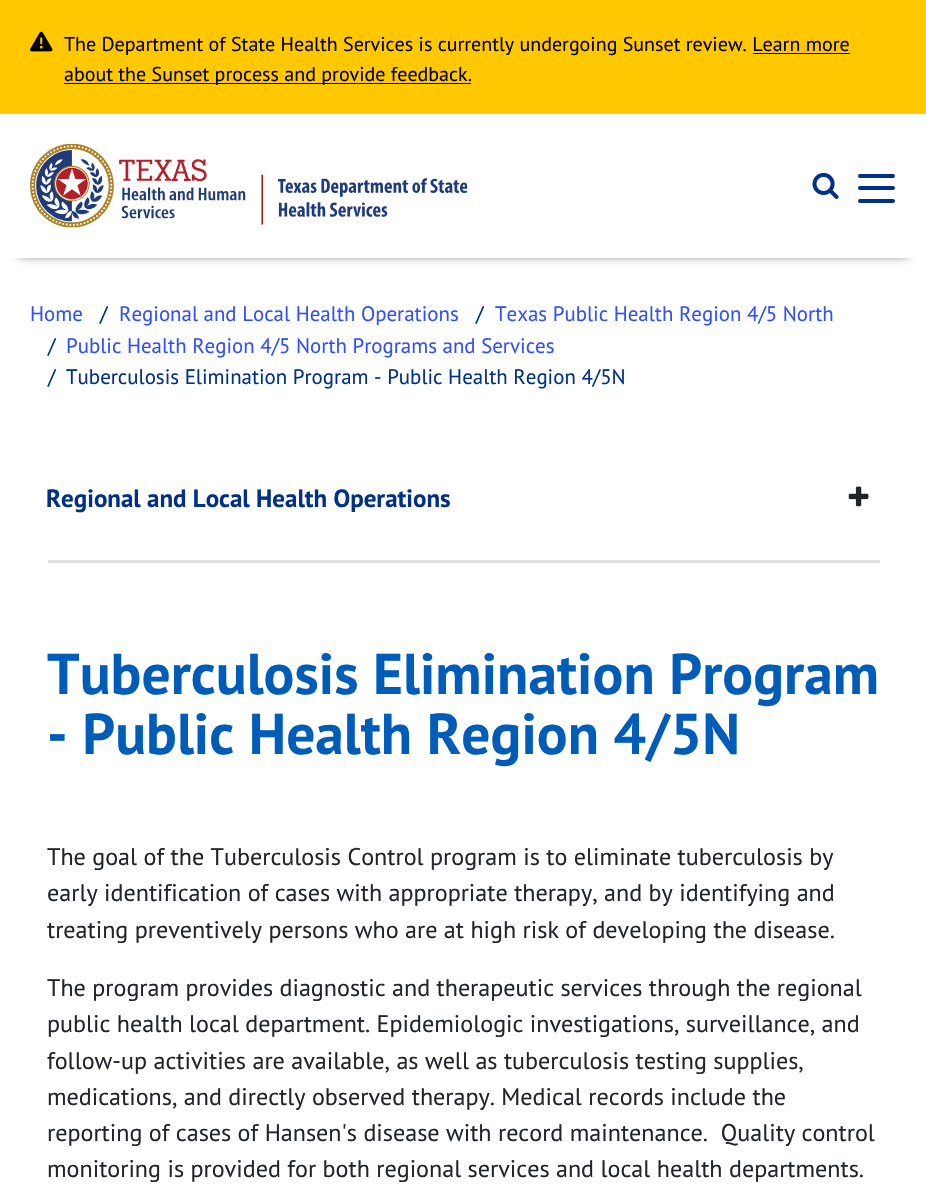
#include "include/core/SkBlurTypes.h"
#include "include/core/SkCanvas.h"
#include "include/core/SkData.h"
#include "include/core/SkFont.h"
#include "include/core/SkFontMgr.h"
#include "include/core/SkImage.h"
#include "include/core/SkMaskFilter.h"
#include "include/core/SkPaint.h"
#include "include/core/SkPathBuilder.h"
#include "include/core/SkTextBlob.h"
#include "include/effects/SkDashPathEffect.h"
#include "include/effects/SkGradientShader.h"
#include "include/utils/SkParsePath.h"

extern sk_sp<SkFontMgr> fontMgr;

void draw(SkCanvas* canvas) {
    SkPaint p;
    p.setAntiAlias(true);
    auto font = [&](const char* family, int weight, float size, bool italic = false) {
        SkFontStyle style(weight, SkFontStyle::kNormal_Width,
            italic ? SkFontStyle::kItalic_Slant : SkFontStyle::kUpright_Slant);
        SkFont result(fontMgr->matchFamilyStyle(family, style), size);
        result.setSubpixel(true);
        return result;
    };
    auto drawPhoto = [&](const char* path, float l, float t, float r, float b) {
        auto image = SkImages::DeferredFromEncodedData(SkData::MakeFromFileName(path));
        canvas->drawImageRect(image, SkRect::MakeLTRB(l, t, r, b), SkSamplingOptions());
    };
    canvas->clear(0xFFFFFFFF);
    canvas->save();
    canvas->clipPath(SkPathBuilder(SkPathFillType::kEvenOdd).moveTo(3, 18).lineTo(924, 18).lineTo(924, 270).lineTo(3, 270).close().moveTo(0, 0).lineTo(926, 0).lineTo(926, 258).lineTo(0, 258).close().detach(), true);
    p.setColor(0xFF111111);
    p.setMaskFilter(SkMaskFilter::MakeBlur(kNormal_SkBlurStyle, 5));
    canvas->drawRect(SkRect::MakeLTRB(19, 34, 908, 254), p);
    p.setMaskFilter(nullptr);
    canvas->restore();
    p.setColor(0xFFFFC800);
    canvas->drawRect(SkRect::MakeLTRB(0, 0, 926, 114), p);
    drawPhoto("media/1.png", 30, 31, 53, 52);
    auto font1 = font("PT Sans", 400, 20);
    p.setColor(0xFF000000);
    canvas->drawString("The Department of State Health Services is currently undergoing Sunset review. Learn more", 64, 51, font1, p);
    canvas->drawRect(SkRect::MakeLTRB(64, 83, 471, 84), p);
    canvas->drawString("about the Sunset process and provide feedback.", 64, 81, font1, p);
    canvas->drawRect(SkRect::MakeLTRB(753, 53, 850, 54), p);
    drawPhoto("media/2.png", 30, 144, 468, 228);
    drawPhoto("media/3.png", 812, 172, 839, 199);
    p.setColor(0xFF003087);
    canvas->drawRoundRect(SkRect::MakeLTRB(858, 174, 895, 178), 2, 2, p);
    canvas->drawRoundRect(SkRect::MakeLTRB(858, 186, 895, 190), 2, 2, p);
    canvas->drawRoundRect(SkRect::MakeLTRB(858, 199, 895, 203), 2, 2, p);
    auto font2 = font("PT Sans", 400, 20.9f);
    p.setColor(0xFF304FFE);
    canvas->drawString("Home", 30, 321, font2, p);
    p.setColor(0xFF003087);
    canvas->drawString("/", 100, 321, font2, p);
    p.setColor(0xFF304FFE);
    canvas->drawString("Regional and Local Health Operations", 119, 321, font2, p);
    p.setColor(0xFF003087);
    canvas->drawString("/", 476, 321, font2, p);
    p.setColor(0xFF304FFE);
    canvas->drawString("Texas Public Health Region 4/5 North", 495, 321, font2, p);
    p.setColor(0xFF003087);
    canvas->drawString("/", 48, 353, font2, p);
    p.setColor(0xFF304FFE);
    canvas->drawString("Public Health Region 4/5 North Programs and Services", 66, 353, font2, p);
    p.setColor(0xFF003087);
    canvas->drawString("/", 48, 384, font2, p);
    canvas->drawString("Tuberculosis Elimination Program - Public Health Region 4/5N", 66, 384, font2, p);
    auto font3 = font("PT Sans", 700, 25);
    canvas->drawString("Regional and Local Health Operations", 46, 507, font3, p);
    drawPhoto("media/4.png", 848, 486, 869, 507);
    p.setColor(0xFFDCDEE1);
    canvas->drawRect(SkRect::MakeLTRB(48, 560, 880, 563), p);
    auto font4 = font("PT Sans", 700, 57.5f);
    p.setColor(0xFF005CB9);
    canvas->drawString("Tuberculosis Elimination Program", 47, 694, font4, p);
    canvas->drawString("- Public Health Region 4/5N", 47, 754, font4, p);
    auto font5 = font("PT Sans", 400, 24.1f);
    p.setColor(0xFF212529);
    {
        const struct { const char* s; float x, y; } items[] = {
            {"The goal of the Tuberculosis Control program is to eliminate tuberculosis by", 47, 865},
            {"early identification of cases with appropriate therapy, and by identifying and", 47, 901},
            {"treating preventively persons who are at high risk of developing the disease.", 47, 938},
            {"The program provides diagnostic and therapeutic services through the regional", 47, 996},
            {"public health local department. Epidemiologic investigations, surveillance, and", 47, 1032},
            {"follow-up activities are available, as well as tuberculosis testing supplies,", 47, 1069},
            {"medications, and directly observed therapy. Medical records include the", 47, 1105},
            {"reporting of cases of Hansen's disease with record maintenance.  Quality control", 47, 1141},
            {"monitoring is provided for both regional services and local health departments.", 47, 1177},
        };
        for (auto [s, x, y] : items) {
            canvas->drawString(s, x, y, font5, p);
        }
    }
}
